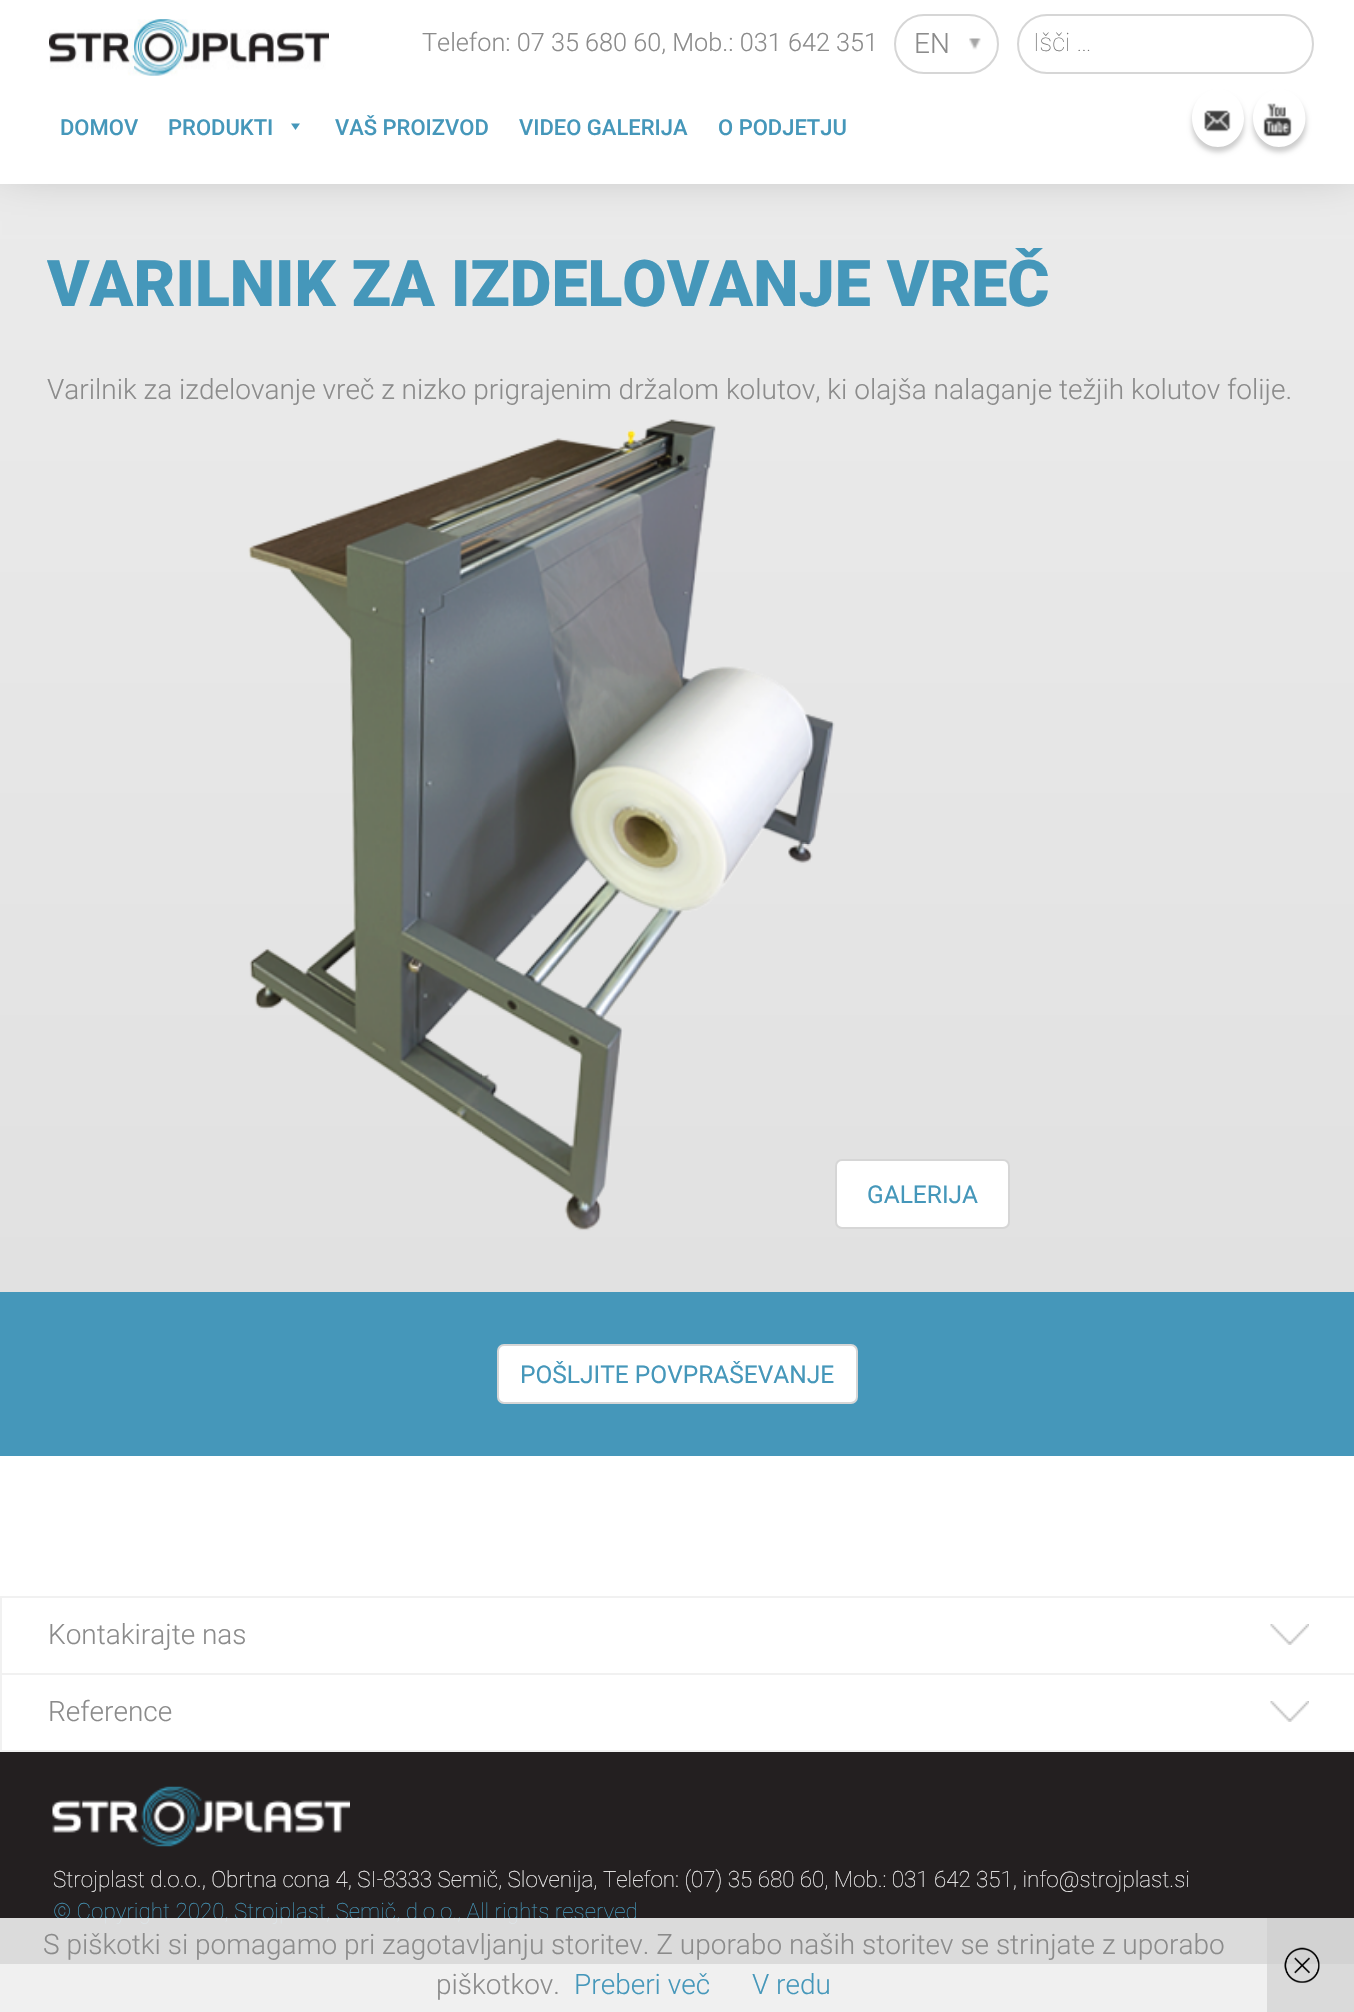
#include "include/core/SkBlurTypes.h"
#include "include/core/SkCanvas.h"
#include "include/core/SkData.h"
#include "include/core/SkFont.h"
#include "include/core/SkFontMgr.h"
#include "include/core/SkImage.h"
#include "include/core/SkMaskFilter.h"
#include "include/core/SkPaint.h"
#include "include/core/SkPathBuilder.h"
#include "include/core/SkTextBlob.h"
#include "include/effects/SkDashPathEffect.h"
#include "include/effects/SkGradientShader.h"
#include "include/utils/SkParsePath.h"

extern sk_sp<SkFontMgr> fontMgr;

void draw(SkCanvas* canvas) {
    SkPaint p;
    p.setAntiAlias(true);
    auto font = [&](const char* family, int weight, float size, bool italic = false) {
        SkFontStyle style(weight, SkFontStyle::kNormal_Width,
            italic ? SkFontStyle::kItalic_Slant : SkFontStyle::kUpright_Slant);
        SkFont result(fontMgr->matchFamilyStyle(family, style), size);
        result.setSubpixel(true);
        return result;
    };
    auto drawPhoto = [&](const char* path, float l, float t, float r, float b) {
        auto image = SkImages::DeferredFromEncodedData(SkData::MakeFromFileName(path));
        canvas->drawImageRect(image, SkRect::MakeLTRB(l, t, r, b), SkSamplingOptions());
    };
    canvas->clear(0xFFFFFFFF);
    {
        const SkColor colors[] = {0xFFEBEBEB, 0xFFE1E1E1};
        const float stops[] = {0, 1};
        const SkPoint ends[] = {{677, 184}, {677, 1292}};
        p.setShader(SkGradientShader::MakeLinear(ends, colors, stops, 2, SkTileMode::kClamp));
        p.setAlpha(255);
    }
    canvas->drawRect(SkRect::MakeLTRB(0, 184, 1354, 1292), p);
    p.setShader(nullptr);
    p.setColor(0xFF8B8B8B);
    p.setMaskFilter(SkMaskFilter::MakeBlur(kNormal_SkBlurStyle, 26));
    canvas->drawRect(SkRect::MakeLTRB(2, -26, 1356, 158), p);
    p.setMaskFilter(nullptr);
    p.setColor(0xFFFFFFFF);
    canvas->drawRect(SkRect::MakeLTRB(0, 0, 1354, 184), p);
    auto font1 = font("Roboto", 300, 25.25f);
    p.setColor(0xFF8B8B8B);
    canvas->drawString("Telefon: 07 35 680 60, Mob.: 031 642 351", 422, 51, font1, p);
    drawPhoto("media/1.png", 969, 38, 981, 50);
    p.setStyle(SkPaint::kStroke_Style);
    p.setStrokeWidth(2);
    p.setColor(0xFFD6D6D6);
    canvas->drawRoundRect(SkRect::MakeLTRB(895, 15, 998, 73), 29, 29, p);
    auto font2 = font("Roboto", 300, 28);
    p.setStyle(SkPaint::kFill_Style);
    p.setColor(0xFF8B8B8B);
    canvas->drawString("EN", 914, 53, font2, p);
    p.setStyle(SkPaint::kStroke_Style);
    p.setColor(0xFFD6D6D6);
    canvas->drawRoundRect(SkRect::MakeLTRB(1018, 15, 1313, 73), 29, 29, p);
    auto font3 = font("Roboto", 100, 25.25f);
    p.setStyle(SkPaint::kFill_Style);
    p.setColor(0xFF757575);
    canvas->drawString("Išči …", 1033, 51, font3, p);
    drawPhoto("media/2.png", 49, 19, 329, 76);
    auto font4 = font("Roboto", 500, 22);
    p.setColor(0xFF4597BA);
    canvas->drawString("DOMOV", 60, 135, font4, p);
    canvas->drawString("PRODUKTI", 168, 135, font4, p);
    canvas->drawPath(SkPathBuilder().moveTo(300, 123.5f).lineTo(295.5f, 130).lineTo(291, 123.5f).close().detach(), p);
    {
        const struct { const char* s; float x, y; } items[] = {
            {"VAŠ PROIZVOD", 335, 135},
            {"VIDEO GALERIJA", 519, 135},
            {"O PODJETJU", 718, 135},
        };
        for (auto [s, x, y] : items) {
            canvas->drawString(s, x, y, font4, p);
        }
    }
    drawPhoto("media/3.png", 1204, 110, 1231, 132);
    canvas->save();
    canvas->clipPath(SkPathBuilder(SkPathFillType::kEvenOdd).moveTo(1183, 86).lineTo(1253, 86).lineTo(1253, 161).lineTo(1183, 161).close().moveTo(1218, 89).cubicTo(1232.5f, 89, 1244, 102, 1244, 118).cubicTo(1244, 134, 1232.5f, 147, 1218, 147).cubicTo(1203.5f, 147, 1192, 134, 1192, 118).cubicTo(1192, 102, 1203.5f, 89, 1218, 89).close().detach(), true);
    p.setColor(0x33000000);
    p.setMaskFilter(SkMaskFilter::MakeBlur(kNormal_SkBlurStyle, 2.5f));
    canvas->drawRoundRect(SkRect::MakeLTRB(1192, 95, 1244, 152), 26, 26, p);
    p.setMaskFilter(nullptr);
    canvas->restore();
    drawPhoto("media/4.png", 1263, 103, 1292, 137);
    canvas->save();
    canvas->clipPath(SkPathBuilder(SkPathFillType::kEvenOdd).moveTo(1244, 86).lineTo(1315, 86).lineTo(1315, 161).lineTo(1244, 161).close().moveTo(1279, 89).cubicTo(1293.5f, 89, 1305.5f, 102, 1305.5f, 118).cubicTo(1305.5f, 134, 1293.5f, 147, 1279, 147).cubicTo(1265, 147, 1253, 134, 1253, 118).cubicTo(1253, 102, 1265, 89, 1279, 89).close().detach(), true);
    p.setMaskFilter(SkMaskFilter::MakeBlur(kNormal_SkBlurStyle, 2.5f));
    canvas->drawRoundRect(SkRect::MakeLTRB(1253, 95, 1306, 152), 26.5f, 26.5f, p);
    p.setMaskFilter(nullptr);
    canvas->restore();
    auto font5 = font("Roboto", 900, 64.4f);
    p.setColor(0xFF4597BA);
    canvas->drawString("VARILNIK ZA IZDELOVANJE VREČ", 47, 306, font5, p);
    p.setColor(0xFF8B8B8B);
    canvas->drawString("Varilnik za izdelovanje vreč z nizko prigrajenim držalom kolutov, ki olajša nalaganje težjih kolutov folije.", 47, 399, font2, p);
    drawPhoto("media/5.png", 248, 419, 835, 1231);
    p.setColor(0xFFFFFFFF);
    canvas->drawRoundRect(SkRect::MakeLTRB(836, 1160, 1009, 1228), 6, 6, p);
    p.setStyle(SkPaint::kStroke_Style);
    p.setColor(0xFFD6D6D6);
    canvas->drawRoundRect(SkRect::MakeLTRB(836, 1160, 1009, 1228), 6, 6, p);
    auto font6 = font("Roboto", 400, 24.5f);
    p.setStyle(SkPaint::kFill_Style);
    p.setColor(0xFF4597BA);
    canvas->drawString("GALERIJA", 867, 1203, font6, p);
    canvas->drawRect(SkRect::MakeLTRB(0, 1292, 1354, 1456), p);
    p.setColor(0xFFFFFFFF);
    canvas->drawRoundRect(SkRect::MakeLTRB(498, 1345, 857, 1403), 6, 6, p);
    p.setStyle(SkPaint::kStroke_Style);
    p.setColor(0xFFD6D6D6);
    canvas->drawRoundRect(SkRect::MakeLTRB(498, 1345, 857, 1403), 6, 6, p);
    p.setStyle(SkPaint::kFill_Style);
    p.setColor(0xFF4597BA);
    canvas->drawString("POŠLJITE POVPRAŠEVANJE", 520, 1383, font6, p);
    p.setColor(0xFFF1F1F1);
    canvas->drawRect(SkRect::MakeLTRB(0, 1596, 1354, 1598), p);
    canvas->drawRect(SkRect::MakeLTRB(0, 1596, 2, 1675), p);
    p.setColor(0xFF8B8B8B);
    canvas->drawString("Kontakirajte nas", 48, 1644, font2, p);
    drawPhoto("media/6.png", 1270, 1624, 1309, 1645);
    {
        const struct { float l, t, r, b; SkColor color; } items[] = {
            {0, 1673, 1354, 1675, 0xFFF1F1F1},
            {0, 1750, 1354, 1752, 0xFFF1F1F1},
            {0, 1673, 2, 1752, 0xFFF1F1F1},
        };
        for (auto [l, t, r, b, color] : items) {
            p.setColor(color);
            canvas->drawRect(SkRect::MakeLTRB(l, t, r, b), p);
        }
    }
    p.setColor(0xFF8B8B8B);
    canvas->drawString("Reference", 48, 1721, font2, p);
    drawPhoto("media/6.png", 1270, 1701, 1309, 1722);
    p.setColor(0xFF231F20);
    canvas->drawRect(SkRect::MakeLTRB(0, 1752, 1354, 1964), p);
    drawPhoto("media/7.png", 52, 1786, 350, 1847);
    auto font7 = font("Roboto", 100, 22.4f);
    p.setColor(0xFFFFFFFF);
    canvas->drawString("Strojplast d.o.o., Obrtna cona 4, SI-8333 Semič, Slovenija, Telefon: (07) 35 680 60, Mob.: 031 642 351, info@strojplast.si", 53, 1887, font7, p);
    p.setColor(0xFF4597BA);
    canvas->drawString("© Copyright 2020, Strojplast, Semič, d.o.o., All rights reserved", 53, 1919, font7, p);
    p.setColor(0xE6EEEEEE);
    canvas->drawRect(SkRect::MakeLTRB(0, 1918, 1354, 2012), p);
    p.setColor(0xFF8B8B8B);
    canvas->drawString("S piškotki si pomagamo pri zagotavljanju storitev. Z uporabo naših storitev se strinjate z uporabo", 43, 1954, font2, p);
    canvas->drawString("piškotkov.", 436, 1994, font2, p);
    p.setColor(0xFF4597BA);
    canvas->drawString("Preberi več", 574, 1994, font2, p);
    canvas->drawString("V redu", 752, 1994, font2, p);
    p.setColor(0x99CCCCCC);
    canvas->drawRect(SkRect::MakeLTRB(1267, 1918, 1354, 2012), p);
    drawPhoto("media/8.png", 1284, 1947, 1320, 1983);
}
